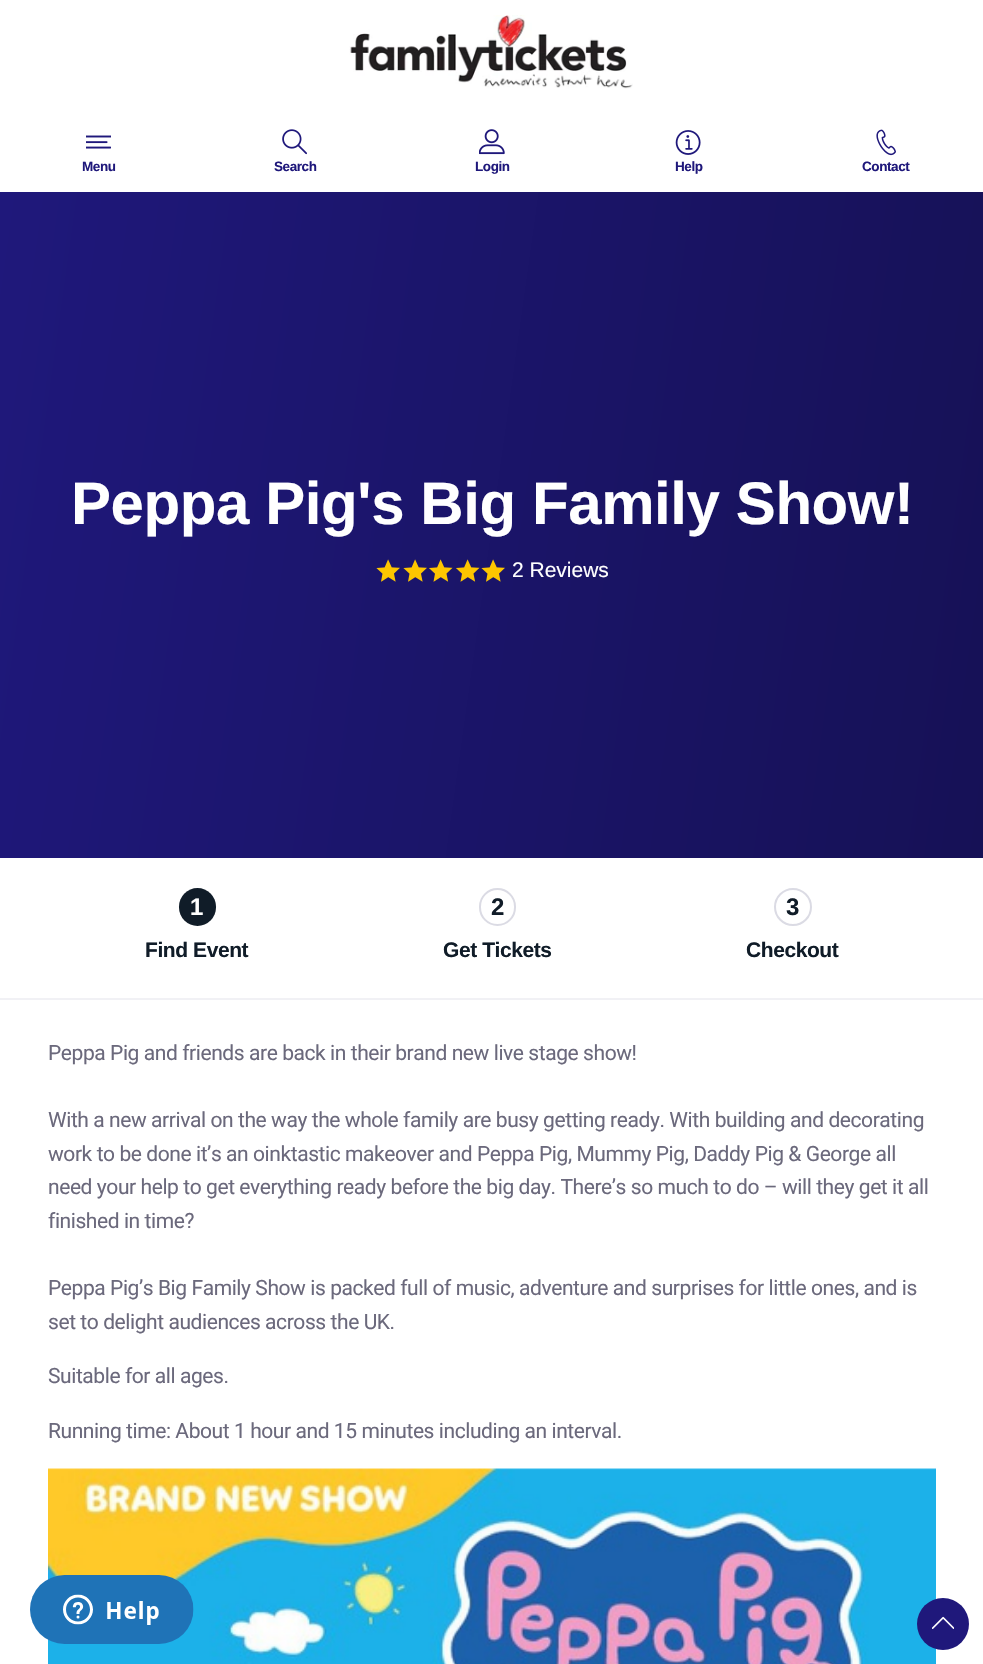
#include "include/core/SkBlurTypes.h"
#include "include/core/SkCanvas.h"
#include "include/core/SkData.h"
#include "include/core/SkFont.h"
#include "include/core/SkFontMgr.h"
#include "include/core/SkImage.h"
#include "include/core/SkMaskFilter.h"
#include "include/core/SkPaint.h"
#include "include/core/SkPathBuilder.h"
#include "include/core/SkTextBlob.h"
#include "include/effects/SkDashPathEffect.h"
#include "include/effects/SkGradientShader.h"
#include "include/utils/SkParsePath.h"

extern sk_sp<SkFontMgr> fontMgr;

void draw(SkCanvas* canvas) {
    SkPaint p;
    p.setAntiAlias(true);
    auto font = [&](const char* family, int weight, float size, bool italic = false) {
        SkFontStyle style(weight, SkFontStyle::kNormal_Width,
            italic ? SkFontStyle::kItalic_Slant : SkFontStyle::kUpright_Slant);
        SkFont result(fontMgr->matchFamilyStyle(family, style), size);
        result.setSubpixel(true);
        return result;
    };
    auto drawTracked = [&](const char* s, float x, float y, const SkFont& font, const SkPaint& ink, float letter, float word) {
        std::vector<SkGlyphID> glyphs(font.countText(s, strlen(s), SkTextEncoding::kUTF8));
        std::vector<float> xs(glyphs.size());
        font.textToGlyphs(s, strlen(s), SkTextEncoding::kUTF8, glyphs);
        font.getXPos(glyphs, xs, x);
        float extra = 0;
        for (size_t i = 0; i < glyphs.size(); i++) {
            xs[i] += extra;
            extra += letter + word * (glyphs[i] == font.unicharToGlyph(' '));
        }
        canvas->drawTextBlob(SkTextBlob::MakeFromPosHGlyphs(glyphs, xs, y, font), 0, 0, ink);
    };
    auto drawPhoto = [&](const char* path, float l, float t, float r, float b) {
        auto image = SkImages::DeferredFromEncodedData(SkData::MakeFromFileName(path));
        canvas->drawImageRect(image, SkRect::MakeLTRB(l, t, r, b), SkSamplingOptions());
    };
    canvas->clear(0xFFFFFFFF);
    drawPhoto("media/1.png", 349, 15, 633, 89);
    drawPhoto("media/2.png", 86, 135, 111, 149);
    auto font1 = font("Liberation Sans", 700, 13.5f);
    p.setColor(0xFF1F187B);
    drawTracked("Menu", 82, 171, font1, p, -0.42f, 0);
    drawPhoto("media/3.png", 282, 129, 307, 155);
    drawTracked("Search", 274, 171, font1, p, -0.42f, 0);
    drawPhoto("media/4.png", 479, 129, 505, 155);
    drawTracked("Login", 475, 171, font1, p, -0.42f, 0);
    drawPhoto("media/5.png", 675, 130, 701, 155);
    drawTracked("Help", 675, 171, font1, p, -0.42f, 0);
    drawPhoto("media/6.png", 876, 129, 896, 156);
    drawTracked("Contact", 862, 171, font1, p, -0.42f, 0);
    {
        const SkColor colors[] = {0xFF1F187B, 0xFF161156};
        const float stops[] = {0, 1};
        const SkPoint ends[] = {{-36, 451}, {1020, 599}};
        p.setShader(SkGradientShader::MakeLinear(ends, colors, stops, 2, SkTileMode::kClamp));
        p.setAlpha(255);
    }
    canvas->drawRect(SkRect::MakeLTRB(0, 192, 983, 858), p);
    auto font2 = font("Liberation Sans", 700, 60);
    p.setShader(nullptr);
    p.setColor(0xFFFFFFFF);
    drawTracked("Peppa Pig's Big Family Show!", 71, 524, font2, p, -0.42f, 0);
    drawPhoto("media/7.png", 376, 559, 400, 582);
    drawPhoto("media/8.png", 403, 559, 427, 582);
    drawPhoto("media/9.png", 429, 559, 453, 582);
    drawPhoto("media/10.png", 456, 559, 480, 582);
    drawPhoto("media/11.png", 481, 559, 505, 582);
    auto font3 = font("Liberation Sans", 400, 21);
    canvas->drawString("2 Reviews", 512, 577, font3, p);
    p.setColor(0xFFF1F1F5);
    canvas->drawRect(SkRect::MakeLTRB(0, 998, 983, 1000), p);
    p.setColor(0xFF101C28);
    canvas->drawRoundRect(SkRect::MakeLTRB(179, 888, 216, 926), 18.5f, 18.5f, p);
    auto font4 = font("Liberation Sans", 700, 24);
    p.setColor(0xFFFFFFFF);
    drawTracked("1", 190, 915, font4, p, -0.42f, 0);
    auto font5 = font("Liberation Sans", 700, 21);
    p.setColor(0xFF101C28);
    drawTracked("Find Event", 145, 957, font5, p, -0.42f, 0);
    p.setStyle(SkPaint::kStroke_Style);
    p.setStrokeWidth(2);
    p.setColor(0xFFDBDBE4);
    canvas->drawRoundRect(SkRect::MakeLTRB(480, 889, 515, 925), 17.5f, 17.5f, p);
    p.setStyle(SkPaint::kFill_Style);
    p.setColor(0xFF101C28);
    drawTracked("2", 491, 915, font4, p, -0.42f, 0);
    drawTracked("Get Tickets", 443, 957, font5, p, -0.42f, 0);
    p.setStyle(SkPaint::kStroke_Style);
    p.setColor(0xFFDBDBE4);
    canvas->drawCircle(793, 907, 18, p);
    p.setStyle(SkPaint::kFill_Style);
    p.setColor(0xFF101C28);
    drawTracked("3", 786, 915, font4, p, -0.42f, 0);
    drawTracked("Checkout", 746, 957, font5, p, -0.42f, 0);
    auto font6 = font("Roboto", 400, 21);
    p.setColor(0xFF6B697C);
    {
        const struct { const char* s; float x, y; } items[] = {
            {"Peppa Pig and friends are back in their brand new live stage show!", 48, 1060},
            {"With a new arrival on the way the whole family are busy getting ready. With building and decorating", 48, 1127},
            {"work to be done it’s an oinktastic makeover and Peppa Pig, Mummy Pig, Daddy Pig & George all", 48, 1161},
            {"need your help to get everything ready before the big day. There’s so much to do – will they get it all", 48, 1194},
            {"finished in time?", 48, 1228},
            {"Peppa Pig’s Big Family Show is packed full of music, adventure and surprises for little ones, and is", 48, 1295},
            {"set to delight audiences across the UK.", 48, 1329},
            {"Suitable for all ages.", 48, 1383},
            {"Running time: About 1 hour and 15 minutes including an interval.", 48, 1438},
        };
        for (auto [s, x, y] : items) {
            drawTracked(s, x, y, font6, p, -0.42f, 0);
        }
    }
    drawPhoto("media/12.png", 48, 1468, 936, 1664);
    p.setColor(0xFF1F187B);
    canvas->drawCircle(943, 1624, 26, p);
    drawPhoto("media/13.png", 932, 1616, 954, 1629);
    drawPhoto("media/14.png", 30, 1575, 194, 1644);
}
